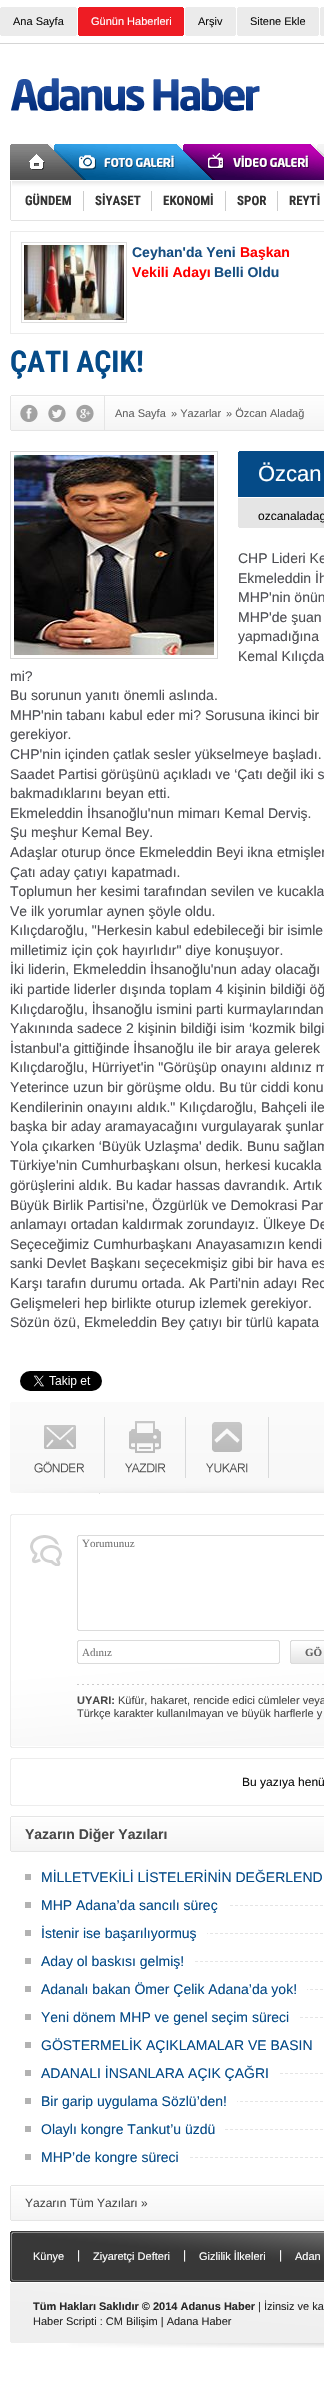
#include "include/core/SkBlurTypes.h"
#include "include/core/SkCanvas.h"
#include "include/core/SkData.h"
#include "include/core/SkFont.h"
#include "include/core/SkFontMgr.h"
#include "include/core/SkImage.h"
#include "include/core/SkMaskFilter.h"
#include "include/core/SkPaint.h"
#include "include/core/SkPathBuilder.h"
#include "include/core/SkTextBlob.h"
#include "include/effects/SkDashPathEffect.h"
#include "include/effects/SkGradientShader.h"
#include "include/utils/SkParsePath.h"

extern sk_sp<SkFontMgr> fontMgr;

void draw(SkCanvas* canvas) {
    SkPaint p;
    p.setAntiAlias(true);
    auto font = [&](const char* family, int weight, float size, bool italic = false) {
        SkFontStyle style(weight, SkFontStyle::kNormal_Width,
            italic ? SkFontStyle::kItalic_Slant : SkFontStyle::kUpright_Slant);
        SkFont result(fontMgr->matchFamilyStyle(family, style), size);
        result.setSubpixel(true);
        return result;
    };
    auto drawPhoto = [&](const char* path, float l, float t, float r, float b) {
        auto image = SkImages::DeferredFromEncodedData(SkData::MakeFromFileName(path));
        canvas->drawImageRect(image, SkRect::MakeLTRB(l, t, r, b), SkSamplingOptions());
    };
    canvas->clear(0xFFFFFFFF);
    p.setColor(0xFFD5D5D5);
    canvas->drawRect(SkRect::MakeLTRB(0, 43, 324, 44), p);
    p.setColor(0xFFEBEBEB);
    canvas->drawRect(SkRect::MakeLTRB(0, 7, 77, 36), p);
    drawPhoto("media/1.png", 0, 7, 1, 36);
    drawPhoto("media/1.png", 76, 7, 77, 36);
    auto font1 = font("Liberation Sans", 400, 11);
    p.setColor(0xFF0F0F0F);
    canvas->drawString("Ana Sayfa", 13, 25, font1, p);
    p.setColor(0xFFEE1C24);
    canvas->drawRect(SkRect::MakeLTRB(78, 7, 184, 36), p);
    drawPhoto("media/2.png", 78, 7, 79, 36);
    drawPhoto("media/2.png", 183, 7, 184, 36);
    p.setColor(0xFFFFFFFF);
    canvas->drawString("Günün Haberleri", 91, 25, font1, p);
    p.setColor(0xFFEBEBEB);
    canvas->drawRect(SkRect::MakeLTRB(185, 7, 236, 36), p);
    drawPhoto("media/1.png", 185, 7, 186, 36);
    drawPhoto("media/1.png", 235, 7, 236, 36);
    p.setColor(0xFF0F0F0F);
    canvas->drawString("Arşiv", 198, 25, font1, p);
    p.setColor(0xFFEBEBEB);
    canvas->drawRect(SkRect::MakeLTRB(237, 7, 319, 36), p);
    drawPhoto("media/1.png", 237, 7, 238, 36);
    drawPhoto("media/1.png", 318, 7, 319, 36);
    p.setColor(0xFF0F0F0F);
    canvas->drawString("Sitene Ekle", 250, 25, font1, p);
    p.setColor(0xFFEBEBEB);
    canvas->drawRect(SkRect::MakeLTRB(320, 7, 324, 36), p);
    drawPhoto("media/1.png", 320, 7, 321, 36);
    drawPhoto("media/3.png", 10, 144, 324, 221);
    drawPhoto("media/4.png", 11, 78, 260, 111);
    auto font2 = font("Roboto Condensed", 700, 13);
    p.setColor(0xFF343434);
    canvas->drawString("GÜNDEM", 25, 205, font2, p);
    p.setColor(0xFFCCCCCC);
    canvas->drawRect(SkRect::MakeLTRB(83, 191, 84, 211), p);
    p.setColor(0xFF343434);
    canvas->drawString("SİYASET", 95, 205, font2, p);
    p.setColor(0xFFCCCCCC);
    canvas->drawRect(SkRect::MakeLTRB(151, 191, 152, 211), p);
    p.setColor(0xFF343434);
    canvas->drawString("EKONOMİ", 163, 205, font2, p);
    p.setColor(0xFFCCCCCC);
    canvas->drawRect(SkRect::MakeLTRB(225, 191, 226, 211), p);
    p.setColor(0xFF343434);
    canvas->drawString("SPOR", 237, 205, font2, p);
    p.setColor(0xFFCCCCCC);
    canvas->drawRect(SkRect::MakeLTRB(277, 191, 278, 211), p);
    p.setColor(0xFF343434);
    canvas->drawString("REYTİ", 289, 205, font2, p);
    p.setStyle(SkPaint::kStroke_Style);
    p.setStrokeWidth(1);
    p.setColor(0xFFECECEC);
    canvas->drawRect(SkRect::MakeLTRB(10.5f, 231.5f, 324.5f, 333.5f), p);
    p.setColor(0xFFDDDDDD);
    canvas->drawRect(SkRect::MakeLTRB(21.5f, 242.5f, 126.5f, 322.5f), p);
    drawPhoto("media/5.png", 24, 245, 124, 320);
    auto font3 = font("Liberation Sans", 700, 14);
    p.setStyle(SkPaint::kFill_Style);
    p.setColor(0xFF174F82);
    canvas->drawString("Ceyhan'da Yeni", 132, 257, font3, p);
    p.setColor(0xFFFF0000);
    canvas->drawString("Başkan", 240, 257, font3, p);
    canvas->drawString("Vekili Adayı", 132, 277, font3, p);
    p.setColor(0xFF174F82);
    canvas->drawString("Belli Oldu", 214, 277, font3, p);
    auto font4 = font("Roboto Condensed", 700, 30);
    p.setColor(0xFF054B88);
    canvas->drawString("ÇATI AÇIK!", 10, 372, font4, p);
    drawPhoto("media/6.png", 10, 395, 324, 431);
    p.setColor(0xFFE5E5E5);
    canvas->drawRect(SkRect::MakeLTRB(104, 395, 105, 431), p);
    drawPhoto("media/7.png", 20, 404, 38, 422);
    drawPhoto("media/8.png", 48, 404, 66, 422);
    drawPhoto("media/9.png", 76, 404, 94, 422);
    p.setColor(0xFF636363);
    {
        const struct { const char* s; float x, y; } items[] = {
            {"Ana Sayfa", 115, 417},
            {"» Yazarlar", 171, 417},
            {"» Özcan Aladağ", 226, 417},
        };
        for (auto [s, x, y] : items) {
            canvas->drawString(s, x, y, font1, p);
        }
    }
    drawPhoto("media/10.png", 10, 451, 324, 659);
    drawPhoto("media/11.png", 14, 455, 214, 655);
    auto font5 = font("Liberation Sans", 400, 22);
    p.setColor(0xFFFFFFFF);
    canvas->drawString("Özcan", 258, 481, font5, p);
    auto font6 = font("Liberation Sans", 400, 12);
    p.setColor(0xFF0F0F0F);
    canvas->drawString("ozcanaladag", 258, 520, font6, p);
    auto font7 = font("Liberation Sans", 400, 14);
    p.setColor(0xFF4D4E53);
    {
        const struct { const char* s; float x, y; } items[] = {
            {"CHP Lideri Ke", 238, 563},
            {"Ekmeleddin İh", 238, 583},
            {"MHP'nin önün", 238, 602},
            {"MHP'de şuan", 238, 622},
            {"yapmadığına", 238, 641},
            {"Kemal Kılıçda", 238, 661},
            {"mi?", 10, 681},
            {"Bu sorunun yanıtı önemli aslında.", 10, 700},
            {"MHP'nin tabanı kabul eder mi? Sorusuna ikinci bir", 10, 720},
            {"gerekiyor.", 10, 739},
            {"CHP'nin içinden çatlak sesler yükselmeye başladı.", 10, 759},
            {"Saadet Partisi görüşünü açıkladı ve ‘Çatı değil iki s", 10, 779},
            {"bakmadıklarını beyan etti.", 10, 798},
            {"Ekmeleddin İhsanoğlu'nun mimarı Kemal Derviş.", 10, 818},
            {"Şu meşhur Kemal Bey.", 10, 837},
            {"Adaşlar oturup önce Ekmeleddin Beyi ikna etmişler", 10, 857},
            {"Çatı aday çatıyı kapatmadı.", 10, 877},
            {"Toplumun her kesimi tarafından sevilen ve kucakla", 10, 896},
            {"Ve ilk yorumlar aynen şöyle oldu.", 10, 916},
            {"Kılıçdaroğlu, \"Herkesin kabul edebileceği bir isimle", 10, 935},
            {"milletimiz için çok hayırlıdır\" diye konuşuyor.", 10, 955},
            {"İki liderin, Ekmeleddin İhsanoğlu'nun aday olacağı", 10, 974},
            {"iki partide liderler dışında toplam 4 kişinin bildiği öğ", 10, 994},
            {"Kılıçdaroğlu, İhsanoğlu ismini parti kurmaylarından", 10, 1014},
            {"Yakınında sadece 2 kişinin bildiği isim ‘kozmik bilgi", 10, 1033},
            {"İstanbul'a gittiğinde İhsanoğlu ile bir araya gelerek", 10, 1053},
            {"Kılıçdaroğlu, Hürriyet'in \"Görüşüp onayını aldınız m", 10, 1072},
            {"Yeterince uzun bir görüşme oldu. Bu tür ciddi konu", 10, 1092},
            {"Kendilerinin onayını aldık.\" Kılıçdaroğlu, Bahçeli ile", 10, 1112},
            {"başka bir aday aramayacağını vurgulayarak şunlar", 10, 1131},
            {"Yola çıkarken ‘Büyük Uzlaşma' dedik. Bunu sağlam", 10, 1151},
            {"Türkiye'nin Cumhurbaşkanı olsun, herkesi kucakla", 10, 1170},
            {"görüşlerini aldık. Bu kadar hassas davrandık. Artık", 10, 1190},
            {"Büyük Birlik Partisi'ne, Özgürlük ve Demokrasi Par", 10, 1210},
            {"anlamayı ortadan kaldırmak zorundayız. Ülkeye De", 10, 1229},
            {"Seçeceğimiz Cumhurbaşkanı Anayasamızın kendi", 10, 1249},
            {"sanki Devlet Başkanı seçecekmişiz gibi bir hava es", 10, 1268},
            {"Karşı tarafın durumu ortada. Ak Parti'nin adayı Rec", 10, 1288},
            {"Gelişmeleri hep birlikte oturup izlemek gerekiyor.", 10, 1308},
            {"Sözün özü, Ekmeleddin Bey çatıyı bir türlü kapata", 10, 1327},
        };
        for (auto [s, x, y] : items) {
            canvas->drawString(s, x, y, font7, p);
        }
    }
    drawPhoto("media/12.png", 20, 1371, 102, 1391);
    drawPhoto("media/13.png", 10, 1402, 324, 1494);
    drawPhoto("media/14.png", 34, 1417, 105, 1478);
    drawPhoto("media/15.png", 125, 1417, 186, 1478);
    drawPhoto("media/16.png", 206, 1417, 269, 1478);
    drawPhoto("media/17.png", 10, 1514, 324, 1748);
    auto font8 = font("Liberation Serif", 400, 11);
    p.setColor(0xFF757575);
    canvas->drawString("Yorumunuz", 82, 1547, font8, p);
    canvas->drawString("Adınız", 82, 1656, font8, p);
    auto font9 = font("Liberation Serif", 700, 11);
    p.setColor(0xFF636363);
    canvas->drawString("GÖ", 305, 1656, font9, p);
    auto font10 = font("Liberation Sans", 700, 11);
    p.setColor(0xFF484848);
    canvas->drawString("UYARI:", 77, 1704, font10, p);
    canvas->drawString("Küfür, hakaret, rencide edici cümleler veya", 118, 1704, font1, p);
    canvas->drawString("Türkçe karakter kullanılmayan ve büyük harflerle y", 77, 1717, font1, p);
    drawPhoto("media/18.png", 10, 1758, 324, 1760);
    p.setColor(0xFFEDEDED);
    canvas->drawRect(SkRect::MakeLTRB(10, 1760, 11, 1804), p);
    p.setColor(0xFF0F0F0F);
    canvas->drawString("Bu yazıya henü", 242, 1786, font6, p);
    drawPhoto("media/19.png", 10, 1804, 324, 1806);
    drawPhoto("media/20.png", 10, 1816, 324, 1852);
    p.setColor(0xFF484848);
    canvas->drawString("Yazarın Diğer Yazıları", 25, 1839, font3, p);
    p.setColor(0xFFB2B2B2);
    canvas->drawRect(SkRect::MakeLTRB(25, 1874, 31, 1880), p);
    p.setColor(0xFF054B88);
    canvas->drawString("MİLLETVEKİLİ LİSTELERİNİN DEĞERLEND", 41, 1882, font7, p);
    drawPhoto("media/21.png", 230, 1905, 323, 1906);
    p.setColor(0xFFB2B2B2);
    canvas->drawRect(SkRect::MakeLTRB(25, 1902, 31, 1908), p);
    p.setColor(0xFF054B88);
    canvas->drawString("MHP Adana’da sancılı süreç", 41, 1910, font7, p);
    drawPhoto("media/22.png", 207, 1933, 323, 1934);
    p.setColor(0xFFB2B2B2);
    canvas->drawRect(SkRect::MakeLTRB(25, 1930, 31, 1936), p);
    p.setColor(0xFF054B88);
    canvas->drawString("İstenir ise başarılıyormuş", 41, 1938, font7, p);
    drawPhoto("media/23.png", 195, 1961, 323, 1962);
    p.setColor(0xFFB2B2B2);
    canvas->drawRect(SkRect::MakeLTRB(25, 1958, 31, 1964), p);
    p.setColor(0xFF054B88);
    canvas->drawString("Aday ol baskısı gelmiş!", 41, 1966, font7, p);
    drawPhoto("media/24.png", 307, 1989, 323, 1990);
    p.setColor(0xFFB2B2B2);
    canvas->drawRect(SkRect::MakeLTRB(25, 1986, 31, 1992), p);
    p.setColor(0xFF054B88);
    canvas->drawString("Adanalı bakan Ömer Çelik Adana’da yok!", 41, 1994, font7, p);
    drawPhoto("media/25.png", 300, 2017, 323, 2018);
    p.setColor(0xFFB2B2B2);
    canvas->drawRect(SkRect::MakeLTRB(25, 2014, 31, 2020), p);
    p.setColor(0xFF054B88);
    canvas->drawString("Yeni dönem MHP ve genel seçim süreci", 41, 2022, font7, p);
    p.setColor(0xFFB2B2B2);
    canvas->drawRect(SkRect::MakeLTRB(25, 2042, 31, 2048), p);
    p.setColor(0xFF054B88);
    canvas->drawString("GÖSTERMELİK AÇIKLAMALAR VE BASIN", 41, 2050, font7, p);
    drawPhoto("media/26.png", 280, 2073, 323, 2074);
    p.setColor(0xFFB2B2B2);
    canvas->drawRect(SkRect::MakeLTRB(25, 2070, 31, 2076), p);
    p.setColor(0xFF054B88);
    canvas->drawString("ADANALI İNSANLARA AÇIK ÇAĞRI", 41, 2078, font7, p);
    drawPhoto("media/27.png", 237, 2101, 323, 2102);
    p.setColor(0xFFB2B2B2);
    canvas->drawRect(SkRect::MakeLTRB(25, 2098, 31, 2104), p);
    p.setColor(0xFF054B88);
    canvas->drawString("Bir garip uygulama Sözlü’den!", 41, 2106, font7, p);
    drawPhoto("media/28.png", 225, 2129, 323, 2130);
    p.setColor(0xFFB2B2B2);
    canvas->drawRect(SkRect::MakeLTRB(25, 2126, 31, 2132), p);
    p.setColor(0xFF054B88);
    canvas->drawString("Olaylı kongre Tankut’u üzdü", 41, 2134, font7, p);
    drawPhoto("media/29.png", 190, 2157, 323, 2158);
    p.setColor(0xFFB2B2B2);
    canvas->drawRect(SkRect::MakeLTRB(25, 2154, 31, 2160), p);
    p.setColor(0xFF054B88);
    canvas->drawString("MHP’de kongre süreci", 41, 2162, font7, p);
    drawPhoto("media/20.png", 10, 2185, 324, 2221);
    p.setColor(0xFF484848);
    canvas->drawString("Yazarın Tüm Yazıları »", 25, 2207, font6, p);
    drawPhoto("media/30.png", 10, 2231, 324, 2348);
    p.setColor(0xFFFFFFFF);
    canvas->drawString("Künye", 33, 2260, font1, p);
    canvas->drawString("|", 77, 2259, font6, p);
    canvas->drawString("Ziyaretçi Defteri", 93, 2260, font1, p);
    canvas->drawString("|", 183, 2259, font6, p);
    canvas->drawString("Gizlilik İlkeleri", 199, 2260, font1, p);
    canvas->drawString("|", 279, 2259, font6, p);
    canvas->drawString("Adan", 295, 2260, font1, p);
    p.setColor(0xFF282828);
    canvas->drawString("Tüm Hakları Saklıdır © 2014 Adanus Haber", 33, 2310, font10, p);
    canvas->drawString("| İzinsiz ve ka", 258, 2310, font1, p);
    canvas->drawString("Haber Scripti : CM Bilişim | Adana Haber", 33, 2325, font1, p);
}
